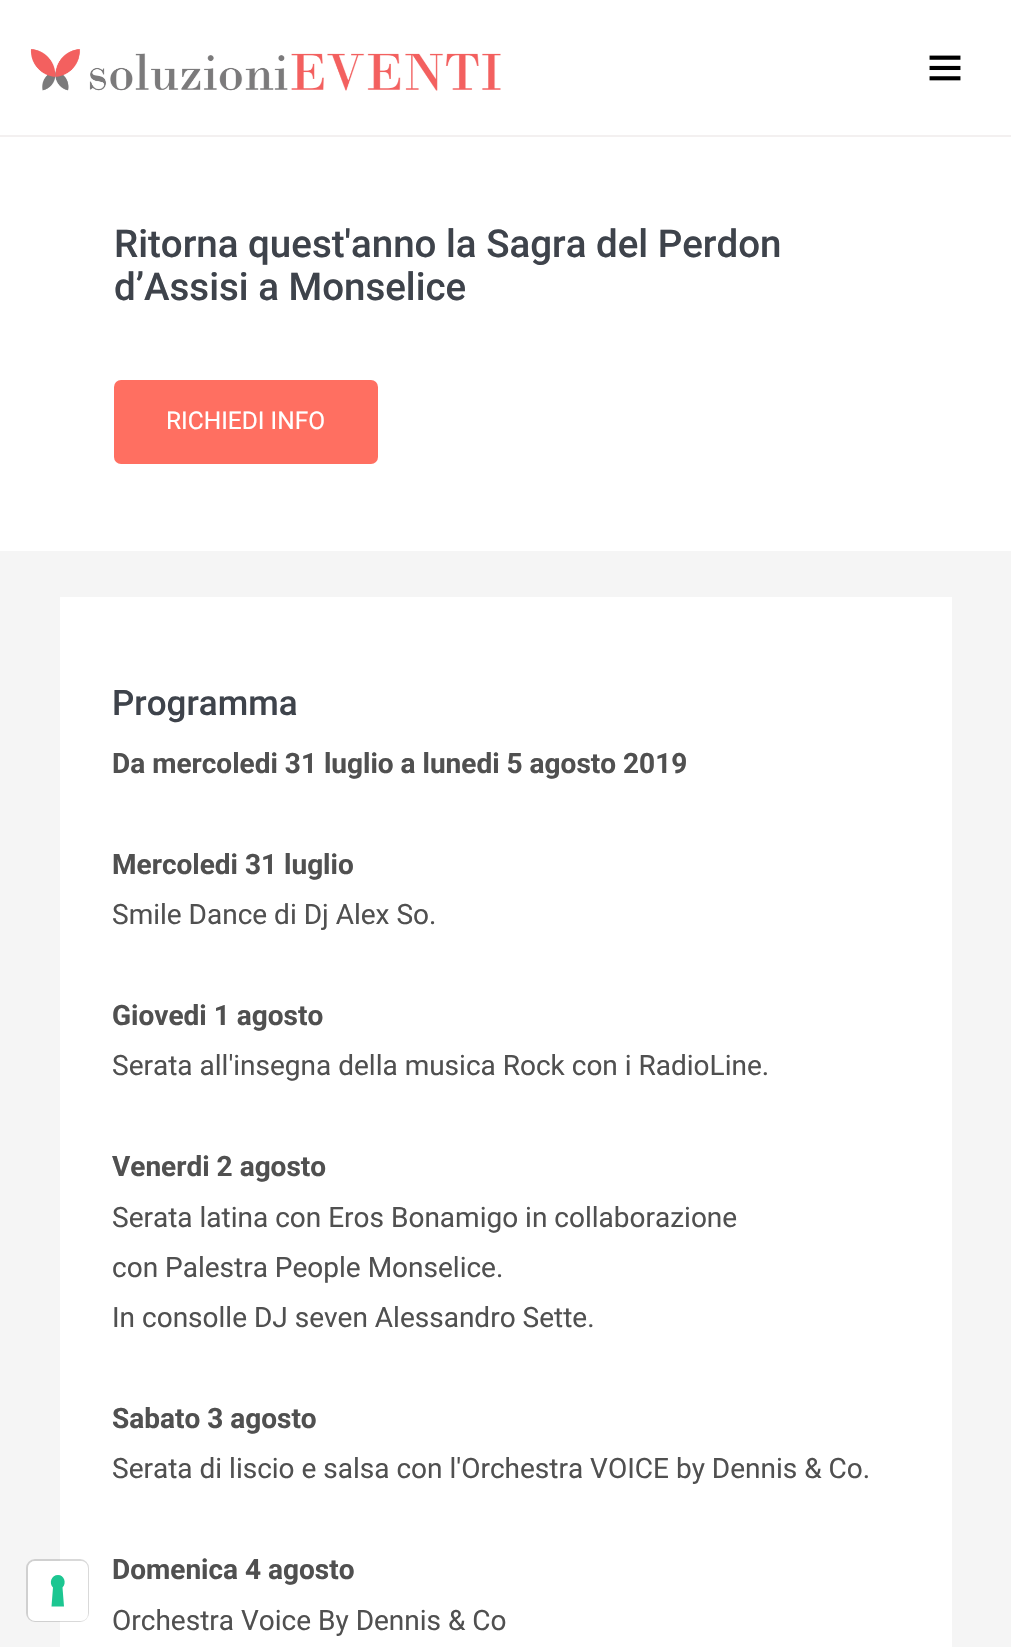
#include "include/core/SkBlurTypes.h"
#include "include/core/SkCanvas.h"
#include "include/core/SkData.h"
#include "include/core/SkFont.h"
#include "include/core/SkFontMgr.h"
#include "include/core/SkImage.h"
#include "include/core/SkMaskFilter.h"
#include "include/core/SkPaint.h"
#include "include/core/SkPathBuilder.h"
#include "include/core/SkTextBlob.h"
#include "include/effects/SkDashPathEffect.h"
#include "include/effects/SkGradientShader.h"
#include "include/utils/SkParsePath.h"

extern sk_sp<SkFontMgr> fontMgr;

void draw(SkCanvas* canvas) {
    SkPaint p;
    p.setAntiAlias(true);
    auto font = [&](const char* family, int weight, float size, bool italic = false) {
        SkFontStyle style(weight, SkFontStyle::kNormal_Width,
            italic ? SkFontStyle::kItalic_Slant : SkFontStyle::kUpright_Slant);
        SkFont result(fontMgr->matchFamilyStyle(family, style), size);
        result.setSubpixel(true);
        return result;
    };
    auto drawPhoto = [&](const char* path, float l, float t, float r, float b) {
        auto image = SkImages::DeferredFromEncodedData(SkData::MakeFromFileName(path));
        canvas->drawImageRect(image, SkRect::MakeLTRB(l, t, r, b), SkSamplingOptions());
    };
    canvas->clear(0xFFFFFFFF);
    p.setColor(0xFFF3F0F0);
    canvas->drawRect(SkRect::MakeLTRB(0, 135, 1011, 137), p);
    drawPhoto("media/1.png", 30, 49, 501, 91);
    drawPhoto("media/2.png", 929, 55, 961, 81);
    auto font1 = font("Roboto", 500, 38.5f);
    p.setColor(0xFF3E434B);
    canvas->drawString("Ritorna quest'anno la Sagra del Perdon", 114, 257, font1, p);
    canvas->drawString("d’Assisi a Monselice", 114, 300, font1, p);
    p.setColor(0xFFFF6F61);
    canvas->drawRoundRect(SkRect::MakeLTRB(114, 380, 378, 464), 7, 7, p);
    auto font2 = font("Roboto", 400, 24.5f);
    p.setColor(0xFFFFFFFF);
    canvas->drawString("RICHIEDI INFO", 166, 429, font2, p);
    p.setColor(0xFFF5F5F5);
    canvas->drawRect(SkRect::MakeLTRB(0, 551, 1011, 1647), p);
    p.setColor(0xFFFFFFFF);
    canvas->drawRect(SkRect::MakeLTRB(60, 597, 952, 1647), p);
    p.setStyle(SkPaint::kStroke_Style);
    p.setStrokeWidth(2);
    p.setColor(0x26000000);
    canvas->drawRoundRect(SkRect::MakeLTRB(27, 1560, 88, 1621), 8, 8, p);
    p.setStyle(SkPaint::kFill_Style);
    p.setColor(0xFFFFFFFF);
    canvas->drawRoundRect(SkRect::MakeLTRB(28, 1561, 88, 1621), 7, 7, p);
    p.setColor(0xFF1CC691);
    canvas->drawPath(SkPathBuilder(SkPathFillType::kEvenOdd).moveTo(58, 1575).cubicTo(64, 1575, 67, 1583, 62.5f, 1587.5f).lineTo(64, 1606.5f).lineTo(51.5f, 1606.5f).lineTo(53, 1587.5f).cubicTo(48.5f, 1583, 51.5f, 1575, 58, 1575).close().detach(), p);
    auto font3 = font("Roboto", 500, 35);
    p.setColor(0xFF3E434B);
    canvas->drawString("Programma", 112, 715, font3, p);
    auto font4 = font("Roboto", 700, 28);
    p.setColor(0xFF505050);
    canvas->drawString("Da mercoledi 31 luglio a lunedi 5 agosto 2019", 112, 773, font4, p);
    canvas->drawString("Mercoledi 31 luglio", 112, 874, font4, p);
    auto font5 = font("Roboto", 400, 28);
    canvas->drawString("Smile Dance di Dj Alex So.", 112, 924, font5, p);
    canvas->drawString("Giovedi 1 agosto", 112, 1025, font4, p);
    canvas->drawString("Serata all'insegna della musica Rock con i RadioLine.", 112, 1075, font5, p);
    canvas->drawString("Venerdi 2 agosto", 112, 1176, font4, p);
    {
        const struct { const char* s; float x, y; } items[] = {
            {"Serata latina con Eros Bonamigo in collaborazione", 112, 1227},
            {"con Palestra People Monselice.", 112, 1277},
            {"In consolle DJ seven Alessandro Sette.", 112, 1327},
        };
        for (auto [s, x, y] : items) {
            canvas->drawString(s, x, y, font5, p);
        }
    }
    canvas->drawString("Sabato 3 agosto", 112, 1428, font4, p);
    canvas->drawString("Serata di liscio e salsa con l'Orchestra VOICE by Dennis & Co.", 112, 1478, font5, p);
    canvas->drawString("Domenica 4 agosto", 112, 1579, font4, p);
    canvas->drawString("Orchestra Voice By Dennis & Co", 112, 1630, font5, p);
}
